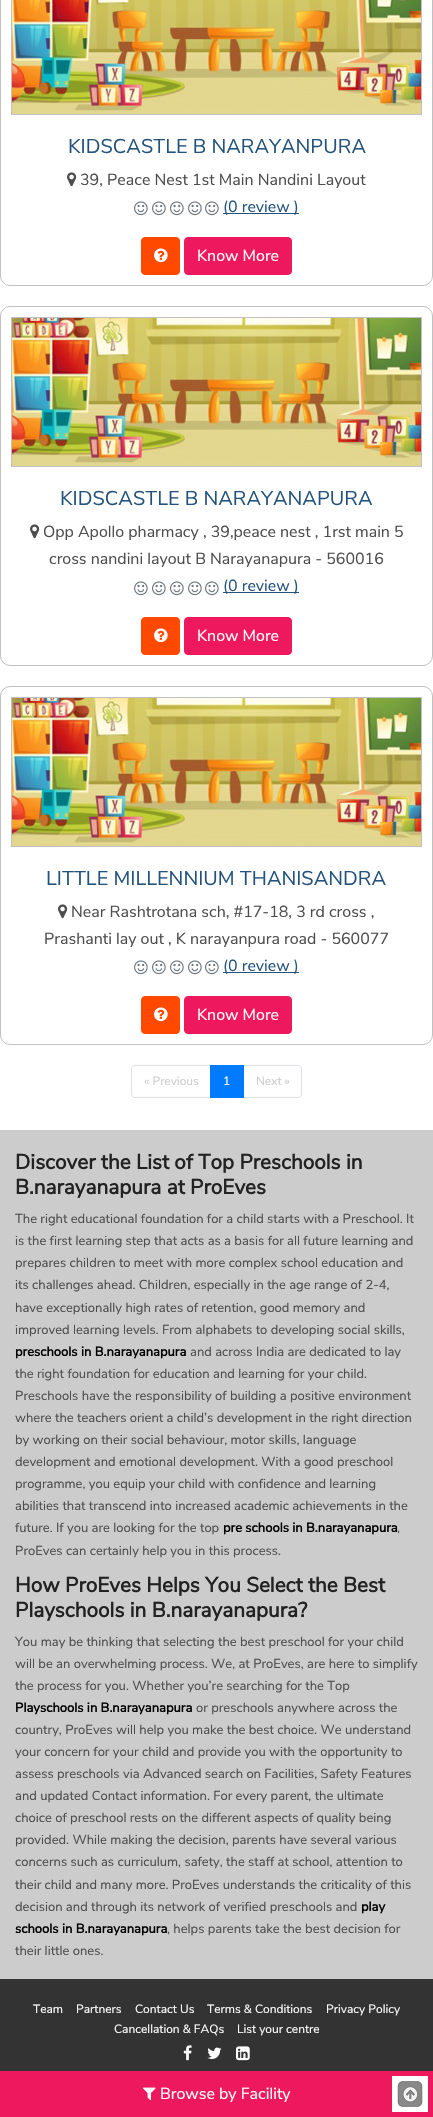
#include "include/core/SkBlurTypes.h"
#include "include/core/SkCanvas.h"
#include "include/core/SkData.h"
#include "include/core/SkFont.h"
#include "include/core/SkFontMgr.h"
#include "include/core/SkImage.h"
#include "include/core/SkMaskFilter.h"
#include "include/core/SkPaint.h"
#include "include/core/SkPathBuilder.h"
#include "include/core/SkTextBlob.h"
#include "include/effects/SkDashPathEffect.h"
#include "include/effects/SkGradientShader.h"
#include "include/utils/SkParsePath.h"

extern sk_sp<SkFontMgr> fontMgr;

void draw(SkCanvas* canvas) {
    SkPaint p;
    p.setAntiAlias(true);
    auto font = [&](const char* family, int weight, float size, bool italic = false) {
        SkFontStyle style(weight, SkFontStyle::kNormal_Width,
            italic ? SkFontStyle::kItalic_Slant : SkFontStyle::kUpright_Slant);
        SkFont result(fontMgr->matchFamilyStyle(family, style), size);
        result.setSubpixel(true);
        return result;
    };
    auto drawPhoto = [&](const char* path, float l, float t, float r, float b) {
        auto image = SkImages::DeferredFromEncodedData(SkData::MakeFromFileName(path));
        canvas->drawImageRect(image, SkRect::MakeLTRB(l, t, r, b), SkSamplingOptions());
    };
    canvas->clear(0xFFFFFFFF);
    p.setStyle(SkPaint::kStroke_Style);
    p.setStrokeWidth(1);
    p.setColor(0xFFC0C0C0);
    canvas->drawRoundRect(SkRect::MakeLTRB(0.5f, -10.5f, 432.5f, 285.5f), 9.5f, 9.5f, p);
    drawPhoto("media/1.png", 12, 0, 421, 114);
    canvas->drawRect(SkRect::MakeLTRB(11.5f, -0.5f, 421.5f, 114.5f), p);
    auto font1 = font("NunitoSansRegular", 400, 20);
    p.setStyle(SkPaint::kFill_Style);
    p.setColor(0xFF23527C);
    canvas->drawString("KIDSCASTLE B NARAYANPURA", 68, 153, font1, p);
    drawPhoto("media/2.png", 67, 172, 77, 187);
    auto font2 = font("NunitoSansRegular", 400, 16);
    p.setColor(0xFF4D4D4D);
    canvas->drawString("39, Peace Nest 1st Main Nandini Layout", 80, 185, font2, p);
    drawPhoto("media/3.png", 134, 201, 148, 216);
    drawPhoto("media/3.png", 152, 201, 166, 216);
    drawPhoto("media/3.png", 170, 201, 184, 216);
    drawPhoto("media/3.png", 188, 201, 202, 216);
    drawPhoto("media/3.png", 205, 201, 219, 216);
    p.setColor(0xFF23527C);
    canvas->drawRect(SkRect::MakeLTRB(223, 213, 299, 214), p);
    canvas->drawString("(0 review )", 223, 212, font2, p);
    p.setColor(0xFFFF4800);
    canvas->drawRoundRect(SkRect::MakeLTRB(141.5f, 237.5f, 179.5f, 274.5f), 3.5f, 3.5f, p);
    p.setStyle(SkPaint::kStroke_Style);
    canvas->drawRoundRect(SkRect::MakeLTRB(141.5f, 237.5f, 179.5f, 274.5f), 3.5f, 3.5f, p);
    drawPhoto("media/4.png", 154, 248, 168, 263);
    p.setStyle(SkPaint::kFill_Style);
    p.setColor(0xFFEE185E);
    canvas->drawRoundRect(SkRect::MakeLTRB(184.5f, 237.5f, 291.5f, 274.5f), 3.5f, 3.5f, p);
    p.setStyle(SkPaint::kStroke_Style);
    canvas->drawRoundRect(SkRect::MakeLTRB(184.5f, 237.5f, 291.5f, 274.5f), 3.5f, 3.5f, p);
    p.setStyle(SkPaint::kFill_Style);
    p.setColor(0xFFFFFFFF);
    canvas->drawString("Know More", 197, 261, font2, p);
    p.setStyle(SkPaint::kStroke_Style);
    p.setColor(0xFFC0C0C0);
    canvas->drawRoundRect(SkRect::MakeLTRB(0.5f, 306.5f, 432.5f, 665.5f), 9.5f, 9.5f, p);
    drawPhoto("media/5.png", 12, 318, 421, 466);
    canvas->drawRect(SkRect::MakeLTRB(11.5f, 317.5f, 421.5f, 466.5f), p);
    p.setStyle(SkPaint::kFill_Style);
    p.setColor(0xFF23527C);
    canvas->drawString("KIDSCASTLE B NARAYANAPURA", 60, 505, font1, p);
    drawPhoto("media/2.png", 30, 524, 40, 539);
    p.setColor(0xFF4D4D4D);
    canvas->drawString("Opp Apollo pharmacy , 39,peace nest , 1rst main 5", 43, 537, font2, p);
    canvas->drawString("cross nandini layout B Narayanapura - 560016", 49, 564, font2, p);
    drawPhoto("media/3.png", 134, 581, 148, 596);
    drawPhoto("media/3.png", 152, 581, 166, 596);
    drawPhoto("media/3.png", 170, 581, 184, 596);
    drawPhoto("media/3.png", 188, 581, 202, 596);
    drawPhoto("media/3.png", 205, 581, 219, 596);
    p.setColor(0xFF23527C);
    canvas->drawRect(SkRect::MakeLTRB(223, 592, 299, 593), p);
    canvas->drawString("(0 review )", 223, 591, font2, p);
    p.setColor(0xFFFF4800);
    canvas->drawRoundRect(SkRect::MakeLTRB(141.5f, 617.5f, 179.5f, 654.5f), 3.5f, 3.5f, p);
    p.setStyle(SkPaint::kStroke_Style);
    canvas->drawRoundRect(SkRect::MakeLTRB(141.5f, 617.5f, 179.5f, 654.5f), 3.5f, 3.5f, p);
    drawPhoto("media/4.png", 154, 628, 168, 643);
    p.setStyle(SkPaint::kFill_Style);
    p.setColor(0xFFEE185E);
    canvas->drawRoundRect(SkRect::MakeLTRB(184.5f, 617.5f, 291.5f, 654.5f), 3.5f, 3.5f, p);
    p.setStyle(SkPaint::kStroke_Style);
    canvas->drawRoundRect(SkRect::MakeLTRB(184.5f, 617.5f, 291.5f, 654.5f), 3.5f, 3.5f, p);
    p.setStyle(SkPaint::kFill_Style);
    p.setColor(0xFFFFFFFF);
    canvas->drawString("Know More", 197, 641, font2, p);
    p.setStyle(SkPaint::kStroke_Style);
    p.setColor(0xFFC0C0C0);
    canvas->drawRoundRect(SkRect::MakeLTRB(0.5f, 686.5f, 432.5f, 1044.5f), 9.5f, 9.5f, p);
    drawPhoto("media/6.png", 12, 698, 421, 846);
    canvas->drawRect(SkRect::MakeLTRB(11.5f, 697.5f, 421.5f, 846.5f), p);
    p.setStyle(SkPaint::kFill_Style);
    p.setColor(0xFF23527C);
    canvas->drawString("LITTLE MILLENNIUM THANISANDRA", 46, 885, font1, p);
    drawPhoto("media/2.png", 58, 904, 68, 919);
    p.setColor(0xFF4D4D4D);
    canvas->drawString("Near Rashtrotana sch, #17-18, 3 rd cross ,", 71, 917, font2, p);
    canvas->drawString("Prashanti lay out , K narayanpura road - 560077", 44, 944, font2, p);
    drawPhoto("media/3.png", 134, 960, 148, 975);
    drawPhoto("media/3.png", 152, 960, 166, 975);
    drawPhoto("media/3.png", 170, 960, 184, 975);
    drawPhoto("media/3.png", 188, 960, 202, 975);
    drawPhoto("media/3.png", 205, 960, 219, 975);
    p.setColor(0xFF23527C);
    canvas->drawRect(SkRect::MakeLTRB(223, 972, 299, 973), p);
    canvas->drawString("(0 review )", 223, 971, font2, p);
    p.setColor(0xFFFF4800);
    canvas->drawRoundRect(SkRect::MakeLTRB(141.5f, 996.5f, 179.5f, 1033.5f), 3.5f, 3.5f, p);
    p.setStyle(SkPaint::kStroke_Style);
    canvas->drawRoundRect(SkRect::MakeLTRB(141.5f, 996.5f, 179.5f, 1033.5f), 3.5f, 3.5f, p);
    drawPhoto("media/4.png", 154, 1007, 168, 1022);
    p.setStyle(SkPaint::kFill_Style);
    p.setColor(0xFFEE185E);
    canvas->drawRoundRect(SkRect::MakeLTRB(184.5f, 996.5f, 291.5f, 1033.5f), 3.5f, 3.5f, p);
    p.setStyle(SkPaint::kStroke_Style);
    canvas->drawRoundRect(SkRect::MakeLTRB(184.5f, 996.5f, 291.5f, 1033.5f), 3.5f, 3.5f, p);
    p.setStyle(SkPaint::kFill_Style);
    p.setColor(0xFFFFFFFF);
    canvas->drawString("Know More", 197, 1020, font2, p);
    p.setStyle(SkPaint::kStroke_Style);
    p.setColor(0xFFDEE2E6);
    canvas->drawPath(SkPathBuilder().moveTo(135, 1065.5f).lineTo(210.5f, 1065.5f).lineTo(210.5f, 1097.5f).lineTo(135, 1097.5f).cubicTo(133, 1097.5f, 131.5f, 1096, 131.5f, 1094).lineTo(131.5f, 1069).cubicTo(131.5f, 1067, 133, 1065.5f, 135, 1065.5f).close().detach(), p);
    auto font3 = font("NunitoSansRegular", 400, 12);
    p.setStyle(SkPaint::kFill_Style);
    p.setColor(0xFFCCCCCC);
    canvas->drawString("« Previous", 144, 1085, font3, p);
    p.setStyle(SkPaint::kStroke_Style);
    p.setColor(0xFFDEE2E6);
    canvas->drawPath(SkPathBuilder().moveTo(243.5f, 1065.5f).lineTo(298, 1065.5f).cubicTo(300, 1065.5f, 301.5f, 1067, 301.5f, 1069).lineTo(301.5f, 1094).cubicTo(301.5f, 1096, 300, 1097.5f, 298, 1097.5f).lineTo(243.5f, 1097.5f).close().detach(), p);
    p.setStyle(SkPaint::kFill_Style);
    p.setColor(0xFF007BFF);
    canvas->drawRect(SkRect::MakeLTRB(210, 1065, 244, 1098), p);
    p.setColor(0xFFFFFFFF);
    canvas->drawString("1", 223, 1085, font3, p);
    p.setColor(0xFFCCCCCC);
    canvas->drawString("Next »", 256, 1085, font3, p);
    canvas->drawRect(SkRect::MakeLTRB(0, 1130, 433, 1979), p);
    auto font4 = font("NunitoSansRegular", 700, 20.75f);
    p.setColor(0xFF222222);
    canvas->drawString("Discover the List of Top Preschools in", 15, 1169, font4, p);
    canvas->drawString("B.narayanapura at ProEves", 15, 1194, font4, p);
    auto font5 = font("NunitoSansRegular", 400, 13);
    p.setColor(0xFF4D4D4D);
    {
        const struct { const char* s; float x, y; } items[] = {
            {"The right educational foundation for a child starts with a Preschool. It", 15, 1223},
            {"is the first learning step that acts as a basis for all future learning and", 15, 1245},
            {"prepares children to meet with more complex school education and", 15, 1267},
            {"its challenges ahead. Children, especially in the age range of 2-4,", 15, 1289},
            {"have exceptionally high rates of retention, good memory and", 15, 1312},
            {"improved learning levels. From alphabets to developing social skills,", 15, 1334},
        };
        for (auto [s, x, y] : items) {
            canvas->drawString(s, x, y, font5, p);
        }
    }
    auto font6 = font("NunitoSansRegular", 700, 13);
    p.setColor(0xFF000000);
    canvas->drawString("preschools in B.narayanapura", 15, 1356, font6, p);
    p.setColor(0xFF4D4D4D);
    {
        const struct { const char* s; float x, y; } items[] = {
            {"and across India are dedicated to lay", 190, 1356},
            {"the right foundation for education and learning for your child.", 15, 1378},
            {"Preschools have the responsibility of building a positive environment", 15, 1400},
            {"where the teachers orient a child’s development in the right direction", 15, 1422},
            {"by working on their social behaviour, motor skills, language", 15, 1444},
            {"development and emotional development. With a good preschool", 15, 1466},
            {"programme, you equip your child with confidence and learning", 15, 1488},
            {"abilities that transcend into increased academic achievements in the", 15, 1510},
            {"future. If you are looking for the top", 15, 1532},
        };
        for (auto [s, x, y] : items) {
            canvas->drawString(s, x, y, font5, p);
        }
    }
    p.setColor(0xFF000000);
    canvas->drawString("pre schools in B.narayanapura", 223, 1532, font6, p);
    p.setColor(0xFF4D4D4D);
    canvas->drawString(",", 397, 1532, font5, p);
    canvas->drawString("ProEves can certainly help you in this process.", 15, 1555, font5, p);
    p.setColor(0xFF222222);
    canvas->drawString("How ProEves Helps You Select the Best", 15, 1592, font4, p);
    canvas->drawString("Playschools in B.narayanapura?", 15, 1617, font4, p);
    p.setColor(0xFF4D4D4D);
    {
        const struct { const char* s; float x, y; } items[] = {
            {"You may be thinking that selecting the best preschool for your child", 15, 1646},
            {"will be an overwhelming process. We, at ProEves, are here to simplify", 15, 1668},
            {"the process for you. Whether you’re searching for the Top", 15, 1690},
        };
        for (auto [s, x, y] : items) {
            canvas->drawString(s, x, y, font5, p);
        }
    }
    p.setColor(0xFF000000);
    canvas->drawString("Playschools in B.narayanapura", 15, 1712, font6, p);
    p.setColor(0xFF4D4D4D);
    {
        const struct { const char* s; float x, y; } items[] = {
            {"or preschools anywhere across the", 196, 1712},
            {"country, ProEves will help you make the best choice. We understand", 15, 1734},
            {"your concern for your child and provide you with the opportunity to", 15, 1756},
            {"assess preschools via Advanced search on Facilities, Safety Features", 15, 1778},
            {"and updated Contact information. For every parent, the ultimate", 15, 1800},
            {"choice of preschool rests on the different aspects of quality being", 15, 1822},
            {"provided. While making the decision, parents have several various", 15, 1844},
            {"concerns such as curriculum, safety, the staff at school, attention to", 15, 1866},
            {"their child and many more. ProEves understands the criticality of this", 15, 1889},
            {"decision and through its network of verified preschools and", 15, 1911},
        };
        for (auto [s, x, y] : items) {
            canvas->drawString(s, x, y, font5, p);
        }
    }
    p.setColor(0xFF000000);
    canvas->drawString("play", 361, 1911, font6, p);
    canvas->drawString("schools in B.narayanapura", 15, 1933, font6, p);
    p.setColor(0xFF4D4D4D);
    canvas->drawString(", helps parents take the best decision for", 167, 1933, font5, p);
    canvas->drawString("their little ones.", 15, 1955, font5, p);
    p.setColor(0xFF333333);
    canvas->drawRect(SkRect::MakeLTRB(0, 1979, 433, 2071), p);
    p.setColor(0xFFFFFFFF);
    {
        const struct { const char* s; float x, y; } items[] = {
            {"Team", 33, 2013},
            {"Partners", 76, 2013},
            {"Contact Us", 135, 2013},
            {"Terms & Conditions", 207, 2013},
            {"Privacy Policy", 326, 2013},
            {"Cancellation & FAQs", 114, 2033},
            {"List your centre", 237, 2033},
        };
        for (auto [s, x, y] : items) {
            canvas->drawString(s, x, y, font3, p);
        }
    }
    drawPhoto("media/7.png", 183, 2045, 192, 2061);
    drawPhoto("media/8.png", 207, 2047, 222, 2059);
    drawPhoto("media/9.png", 236, 2046, 250, 2061);
    p.setColor(0xFFEE185E);
    canvas->drawRect(SkRect::MakeLTRB(0, 2071, 433, 2117), p);
    drawPhoto("media/10.png", 143, 2087, 156, 2101);
    p.setColor(0xFFFFFFFF);
    canvas->drawString("Browse by Facility", 160, 2099, font2, p);
    drawPhoto("media/11.png", 392, 2076, 428, 2112);
}
